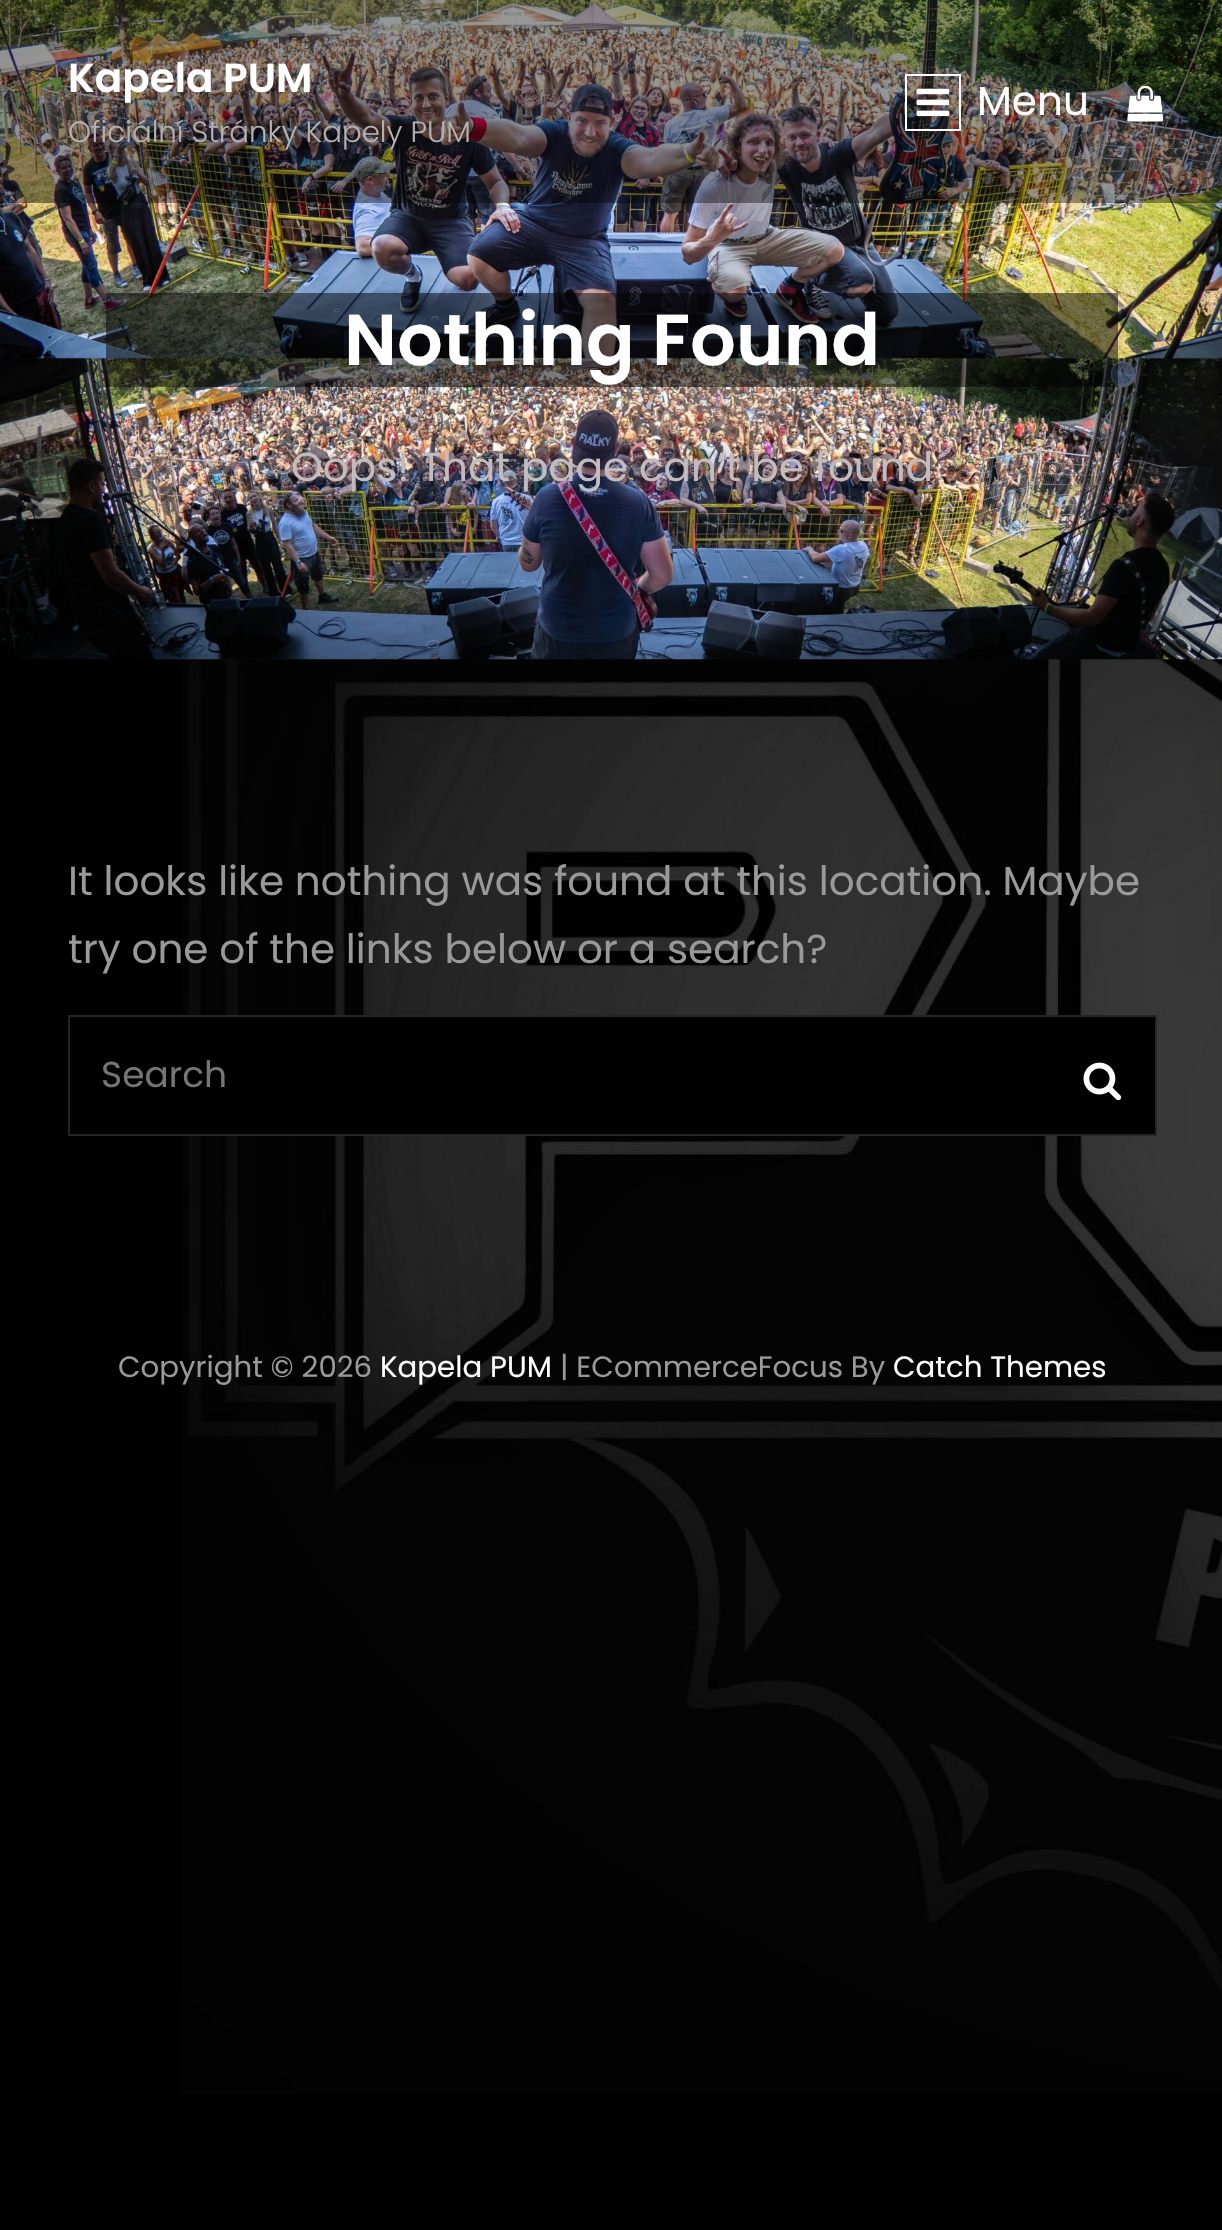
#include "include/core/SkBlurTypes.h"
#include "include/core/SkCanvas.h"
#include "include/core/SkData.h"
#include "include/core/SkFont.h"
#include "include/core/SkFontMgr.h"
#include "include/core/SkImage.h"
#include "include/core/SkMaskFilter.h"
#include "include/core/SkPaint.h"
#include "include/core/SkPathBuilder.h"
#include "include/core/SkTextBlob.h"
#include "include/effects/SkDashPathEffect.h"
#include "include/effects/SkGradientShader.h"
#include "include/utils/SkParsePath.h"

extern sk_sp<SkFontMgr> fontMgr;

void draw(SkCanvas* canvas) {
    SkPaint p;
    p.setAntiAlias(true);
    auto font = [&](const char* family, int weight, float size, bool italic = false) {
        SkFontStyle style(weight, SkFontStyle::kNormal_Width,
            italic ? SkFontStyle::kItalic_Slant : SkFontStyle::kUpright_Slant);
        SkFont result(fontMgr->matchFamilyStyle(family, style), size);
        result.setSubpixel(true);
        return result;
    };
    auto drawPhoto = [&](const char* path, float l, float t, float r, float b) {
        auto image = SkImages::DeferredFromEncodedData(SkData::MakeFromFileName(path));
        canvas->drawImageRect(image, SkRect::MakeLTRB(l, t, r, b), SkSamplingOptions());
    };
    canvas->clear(0xFF000000);
    drawPhoto("media/1.png", 182, 659, 1222, 2095);
    drawPhoto("media/4.png", 0, 0, 1222, 660);
    p.setColor(0x66000000);
    canvas->drawRect(SkRect::MakeLTRB(0, 0, 1222, 203), p);
    auto font1 = font("Poppins", 600, 40.5f);
    p.setColor(0xFFFFFFFF);
    canvas->drawString("Kapela PUM", 68, 92, font1, p);
    auto font2 = font("Poppins", 300, 29.25f);
    p.setColor(0xFFB4B1B1);
    canvas->drawString("Oficiální Stránky Kapely PUM", 68, 142, font2, p);
    p.setStyle(SkPaint::kStroke_Style);
    p.setStrokeWidth(2);
    p.setColor(0xFFFFFFFF);
    canvas->drawRect(SkRect::MakeLTRB(906, 75, 960, 130), p);
    drawPhoto("media/2.png", 916, 88, 950, 117);
    auto font3 = font("Poppins", 400, 40.5f);
    p.setStyle(SkPaint::kFill_Style);
    canvas->drawString("Menu", 977, 115, font3, p);
    drawPhoto("media/3.png", 1127, 86, 1163, 122);
    p.setColor(0x80000000);
    canvas->drawRect(SkRect::MakeLTRB(106, 293, 1118, 387), p);
    auto font4 = font("Poppins", 600, 72);
    p.setColor(0xFFFFFFFF);
    canvas->drawString("Nothing Found", 344, 365, font4, p);
    p.setColor(0xFFC2BCBF);
    canvas->drawString("Oops! That page can’t be found", 291, 481, font3, p);
    p.setColor(0xFF999999);
    canvas->drawString("It looks like nothing was found at this location. Maybe", 68, 895, font3, p);
    canvas->drawString("try one of the links below or a search?", 68, 963, font3, p);
    p.setColor(0xFF000000);
    canvas->drawRect(SkRect::MakeLTRB(182, 1017, 1155, 1134), p);
    p.setStyle(SkPaint::kStroke_Style);
    p.setColor(0xFF252525);
    canvas->drawRect(SkRect::MakeLTRB(69, 1016, 1156, 1135), p);
    auto font5 = font("Poppins", 400, 36);
    p.setStyle(SkPaint::kFill_Style);
    p.setColor(0xFF757575);
    canvas->drawString("Search", 101, 1087, font5, p);
    drawPhoto("media/5.png", 1083, 1062, 1122, 1100);
    auto font6 = font("Poppins", 400, 29.25f);
    p.setColor(0xFF999999);
    canvas->drawString("Copyright © 2026", 118, 1377, font6, p);
    p.setColor(0xFFFFFFFF);
    canvas->drawString("Kapela PUM", 380, 1377, font6, p);
    p.setColor(0xFF999999);
    canvas->drawString("| ECommerceFocus By", 560, 1377, font6, p);
    p.setColor(0xFFFFFFFF);
    canvas->drawString("Catch Themes", 893, 1377, font6, p);
}
